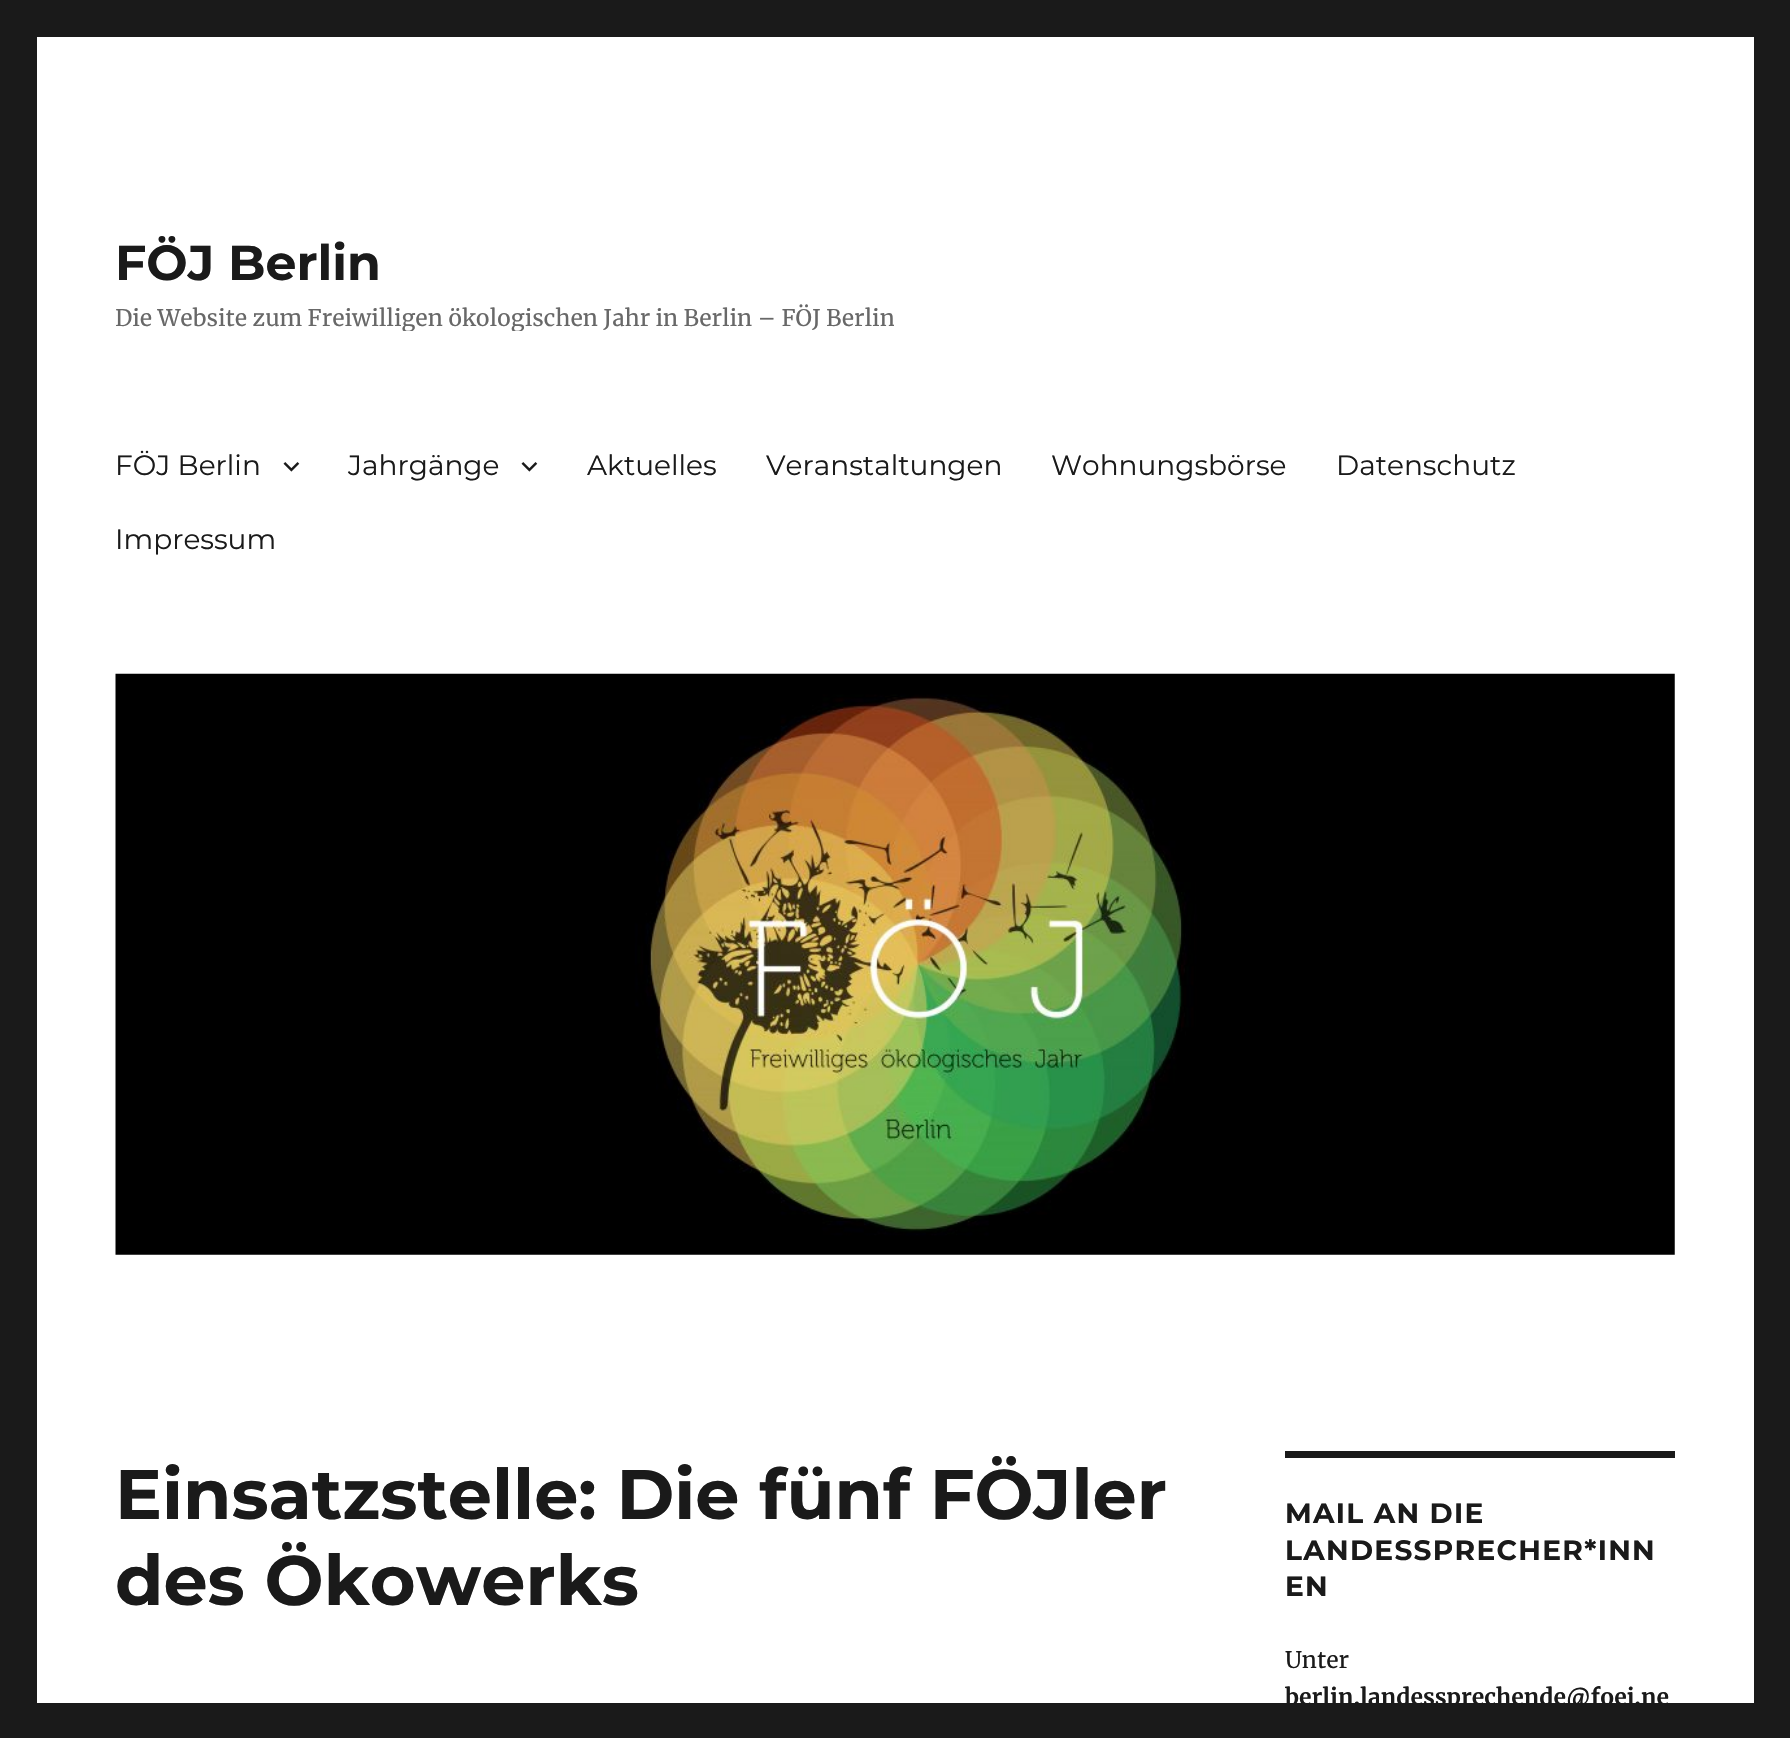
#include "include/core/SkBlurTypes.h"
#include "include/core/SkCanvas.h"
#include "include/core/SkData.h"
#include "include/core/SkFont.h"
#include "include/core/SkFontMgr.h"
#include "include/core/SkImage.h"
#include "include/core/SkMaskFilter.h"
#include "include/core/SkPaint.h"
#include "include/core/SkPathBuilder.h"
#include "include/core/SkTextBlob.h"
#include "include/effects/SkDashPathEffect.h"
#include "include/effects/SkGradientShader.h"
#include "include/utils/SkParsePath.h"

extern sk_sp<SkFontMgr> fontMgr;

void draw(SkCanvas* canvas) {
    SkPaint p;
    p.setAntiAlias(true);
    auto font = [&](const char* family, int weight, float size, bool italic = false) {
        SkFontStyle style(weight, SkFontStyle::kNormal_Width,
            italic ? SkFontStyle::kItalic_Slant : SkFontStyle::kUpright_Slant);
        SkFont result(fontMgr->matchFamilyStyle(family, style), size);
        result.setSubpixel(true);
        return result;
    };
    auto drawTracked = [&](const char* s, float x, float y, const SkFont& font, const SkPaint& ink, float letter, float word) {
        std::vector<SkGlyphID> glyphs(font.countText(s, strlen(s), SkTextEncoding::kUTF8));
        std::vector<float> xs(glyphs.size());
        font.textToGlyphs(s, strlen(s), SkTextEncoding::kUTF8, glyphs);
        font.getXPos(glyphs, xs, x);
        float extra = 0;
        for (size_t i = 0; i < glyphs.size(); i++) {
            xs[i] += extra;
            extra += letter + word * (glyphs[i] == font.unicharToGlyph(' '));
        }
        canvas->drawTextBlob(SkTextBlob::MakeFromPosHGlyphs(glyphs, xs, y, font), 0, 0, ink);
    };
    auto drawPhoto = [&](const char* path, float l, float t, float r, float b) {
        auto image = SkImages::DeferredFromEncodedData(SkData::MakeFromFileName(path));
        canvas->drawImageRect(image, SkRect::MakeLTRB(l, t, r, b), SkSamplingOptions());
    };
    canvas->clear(0xFF1A1A1A);
    p.setColor(0xFFFFFFFF);
    canvas->drawRect(SkRect::MakeLTRB(37, 37, 1754, 1703), p);
    auto font1 = font("Montserrat", 100, 49);
    p.setColor(0xFF1A1A1A);
    canvas->drawString("FÖJ Berlin", 115, 280, font1, p);
    canvas->save();
    canvas->clipRect(SkRect::MakeLTRB(116, 233, 894, 331));
    auto font2 = font("Merriweather", 400, 22.75f);
    p.setColor(0xFF686868);
    canvas->drawString("Die Website zum Freiwilligen ökologischen Jahr in Berlin – FÖJ Berlin", 115, 326, font2, p);
    canvas->restore();
    auto font3 = font("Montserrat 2", 100, 28);
    p.setColor(0xFF1A1A1A);
    canvas->drawString("FÖJ Berlin", 115, 475, font3, p);
    drawPhoto("media/1.png", 283, 462, 300, 472);
    canvas->drawString("Jahrgänge", 348, 475, font3, p);
    drawPhoto("media/1.png", 521, 462, 538, 472);
    {
        const struct { const char* s; float x, y; } items[] = {
            {"Aktuelles", 587, 475},
            {"Veranstaltungen", 766, 475},
            {"Wohnungsbörse", 1051, 475},
            {"Datenschutz", 1336, 475},
            {"Impressum", 115, 549},
        };
        for (auto [s, x, y] : items) {
            canvas->drawString(s, x, y, font3, p);
        }
    }
    drawPhoto("media/2.png", 115, 673, 1675, 1255);
    auto font4 = font("Montserrat", 100, 70);
    canvas->drawString("Einsatzstelle: Die fünf FÖJler", 115, 1519, font4, p);
    canvas->drawString("des Ökowerks", 115, 1605, font4, p);
    canvas->drawRect(SkRect::MakeLTRB(1285, 1451, 1675, 1458), p);
    auto font5 = font("Montserrat", 100, 28);
    {
        const struct { const char* s; float x, y; } items[] = {
            {"MAIL AN DIE", 1285, 1523},
            {"LANDESSPRECHER*INN", 1285, 1560},
            {"EN", 1285, 1596},
        };
        for (auto [s, x, y] : items) {
            drawTracked(s, x, y, font5, p, 1.3f, 0);
        }
    }
    canvas->drawString("Unter", 1285, 1668, font2, p);
    auto font6 = font("Merriweather", 700, 22.75f);
    canvas->drawString("berlin.landessprechende@foej.ne", 1285, 1705, font6, p);
}
